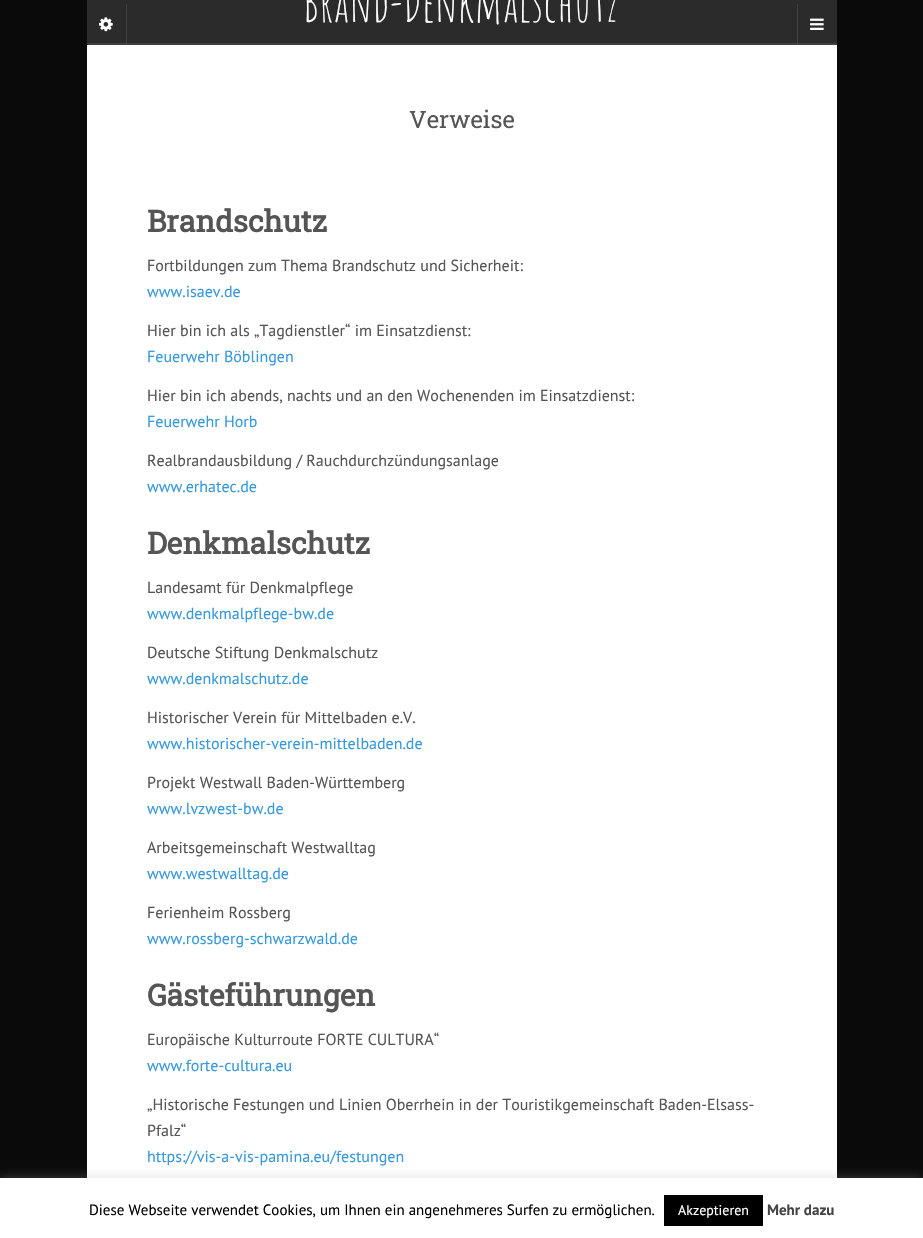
#include "include/core/SkBlurTypes.h"
#include "include/core/SkCanvas.h"
#include "include/core/SkData.h"
#include "include/core/SkFont.h"
#include "include/core/SkFontMgr.h"
#include "include/core/SkImage.h"
#include "include/core/SkMaskFilter.h"
#include "include/core/SkPaint.h"
#include "include/core/SkPathBuilder.h"
#include "include/core/SkTextBlob.h"
#include "include/effects/SkDashPathEffect.h"
#include "include/effects/SkGradientShader.h"
#include "include/utils/SkParsePath.h"

extern sk_sp<SkFontMgr> fontMgr;

void draw(SkCanvas* canvas) {
    SkPaint p;
    p.setAntiAlias(true);
    auto font = [&](const char* family, int weight, float size, bool italic = false) {
        SkFontStyle style(weight, SkFontStyle::kNormal_Width,
            italic ? SkFontStyle::kItalic_Slant : SkFontStyle::kUpright_Slant);
        SkFont result(fontMgr->matchFamilyStyle(family, style), size);
        result.setSubpixel(true);
        return result;
    };
    auto drawPhoto = [&](const char* path, float l, float t, float r, float b) {
        auto image = SkImages::DeferredFromEncodedData(SkData::MakeFromFileName(path));
        canvas->drawImageRect(image, SkRect::MakeLTRB(l, t, r, b), SkSamplingOptions());
    };
    canvas->clear(0xFF0A0A0A);
    {
        const struct { float l, t, r, b; SkColor color; } items[] = {
            {87, 0, 837, 43, 0xFF2B2B2B},
            {797, 4, 798, 44, 0xFF404040},
            {126, 4, 127, 44, 0xFF404040},
        };
        for (auto [l, t, r, b, color] : items) {
            p.setColor(color);
            canvas->drawRect(SkRect::MakeLTRB(l, t, r, b), p);
        }
    }
    drawPhoto("media/1.png", 99, 17, 113, 32);
    {
        const struct { float l, t, r, b; SkColor color; } items[] = {
            {87, 43, 837, 45, 0xFF404040},
            {797, 43, 798, 44, 0xFF535353},
            {126, 43, 127, 44, 0xFF535353},
        };
        for (auto [l, t, r, b, color] : items) {
            p.setColor(color);
            canvas->drawRect(SkRect::MakeLTRB(l, t, r, b), p);
        }
    }
    auto font1 = font("Amatic SC", 400, 50);
    p.setColor(0xFFFFFFFF);
    canvas->drawString("Brand-Denkmalschutz", 303, 22, font1, p);
    drawPhoto("media/2.png", 810, 18, 824, 30);
    canvas->drawRect(SkRect::MakeLTRB(87, 45, 837, 1178), p);
    auto font2 = font("Roboto Slab", 400, 24);
    p.setColor(0xFF555555);
    canvas->drawString("Verweise", 409, 128, font2, p);
    auto font3 = font("Roboto Slab", 700, 30);
    canvas->drawString("Brandschutz", 147, 232, font3, p);
    auto font4 = font("PT Sans", 400, 16);
    canvas->drawString("Fortbildungen zum Thema Brandschutz und Sicherheit:", 147, 271, font4, p);
    p.setColor(0xFF3699DC);
    canvas->drawString("www.isaev.de", 147, 297, font4, p);
    p.setColor(0xFF555555);
    canvas->drawString("Hier bin ich als „Tagdienstler“ im Einsatzdienst:", 147, 336, font4, p);
    p.setColor(0xFF3699DC);
    canvas->drawString("Feuerwehr Böblingen", 147, 362, font4, p);
    p.setColor(0xFF555555);
    canvas->drawString("Hier bin ich abends, nachts und an den Wochenenden im Einsatzdienst:", 147, 401, font4, p);
    p.setColor(0xFF3699DC);
    canvas->drawString("Feuerwehr Horb", 147, 427, font4, p);
    p.setColor(0xFF555555);
    canvas->drawString("Realbrandausbildung / Rauchdurchzündungsanlage", 147, 466, font4, p);
    p.setColor(0xFF3699DC);
    canvas->drawString("www.erhatec.de", 147, 492, font4, p);
    p.setColor(0xFF555555);
    canvas->drawString("Denkmalschutz", 147, 554, font3, p);
    canvas->drawString("Landesamt für Denkmalpflege", 147, 593, font4, p);
    p.setColor(0xFF3699DC);
    canvas->drawString("www.denkmalpflege-bw.de", 147, 619, font4, p);
    p.setColor(0xFF555555);
    canvas->drawString("Deutsche Stiftung Denkmalschutz", 147, 658, font4, p);
    p.setColor(0xFF3699DC);
    canvas->drawString("www.denkmalschutz.de", 147, 684, font4, p);
    p.setColor(0xFF555555);
    canvas->drawString("Historischer Verein für Mittelbaden e.V.", 147, 723, font4, p);
    p.setColor(0xFF3699DC);
    canvas->drawString("www.historischer-verein-mittelbaden.de", 147, 749, font4, p);
    p.setColor(0xFF555555);
    canvas->drawString("Projekt Westwall Baden-Württemberg", 147, 788, font4, p);
    p.setColor(0xFF3699DC);
    canvas->drawString("www.lvzwest-bw.de", 147, 814, font4, p);
    p.setColor(0xFF555555);
    canvas->drawString("Arbeitsgemeinschaft Westwalltag", 147, 853, font4, p);
    p.setColor(0xFF3699DC);
    canvas->drawString("www.westwalltag.de", 147, 879, font4, p);
    p.setColor(0xFF555555);
    canvas->drawString("Ferienheim Rossberg", 147, 918, font4, p);
    p.setColor(0xFF3699DC);
    canvas->drawString("www.rossberg-schwarzwald.de", 147, 944, font4, p);
    p.setColor(0xFF555555);
    canvas->drawString("Gästeführungen", 147, 1006, font3, p);
    canvas->drawString("Europäische Kulturroute FORTE CULTURA“", 147, 1045, font4, p);
    p.setColor(0xFF3699DC);
    canvas->drawString("www.forte-cultura.eu", 147, 1071, font4, p);
    p.setColor(0xFF555555);
    canvas->drawString("„Historische Festungen und Linien Oberrhein in der Touristikgemeinschaft Baden-Elsass-", 147, 1110, font4, p);
    canvas->drawString("Pfalz“", 147, 1136, font4, p);
    p.setColor(0xFF3699DC);
    canvas->drawString("https://vis-a-vis-pamina.eu/festungen", 147, 1162, font4, p);
    p.setColor(0x4DACABAB);
    p.setMaskFilter(SkMaskFilter::MakeBlur(kNormal_SkBlurStyle, 5));
    canvas->drawRect(SkRect::MakeLTRB(0, 1177, 923, 1237), p);
    p.setMaskFilter(nullptr);
    p.setColor(0xFFFFFFFF);
    canvas->drawRect(SkRect::MakeLTRB(0, 1178, 923, 1238), p);
    auto font5 = font("PT Sans", 400, 15);
    p.setColor(0xFF000000);
    canvas->drawString("Diese Webseite verwendet Cookies, um Ihnen ein angenehmeres Surfen zu ermöglichen.", 89, 1215, font5, p);
    canvas->drawRect(SkRect::MakeLTRB(664, 1195, 763, 1226), p);
    auto font6 = font("PT Sans", 400, 14);
    p.setColor(0xFFFFFFFF);
    canvas->drawString("Akzeptieren", 678, 1215, font6, p);
    auto font7 = font("PT Sans", 700, 15);
    p.setColor(0xFF444444);
    canvas->drawString("Mehr dazu", 767, 1215, font7, p);
}
